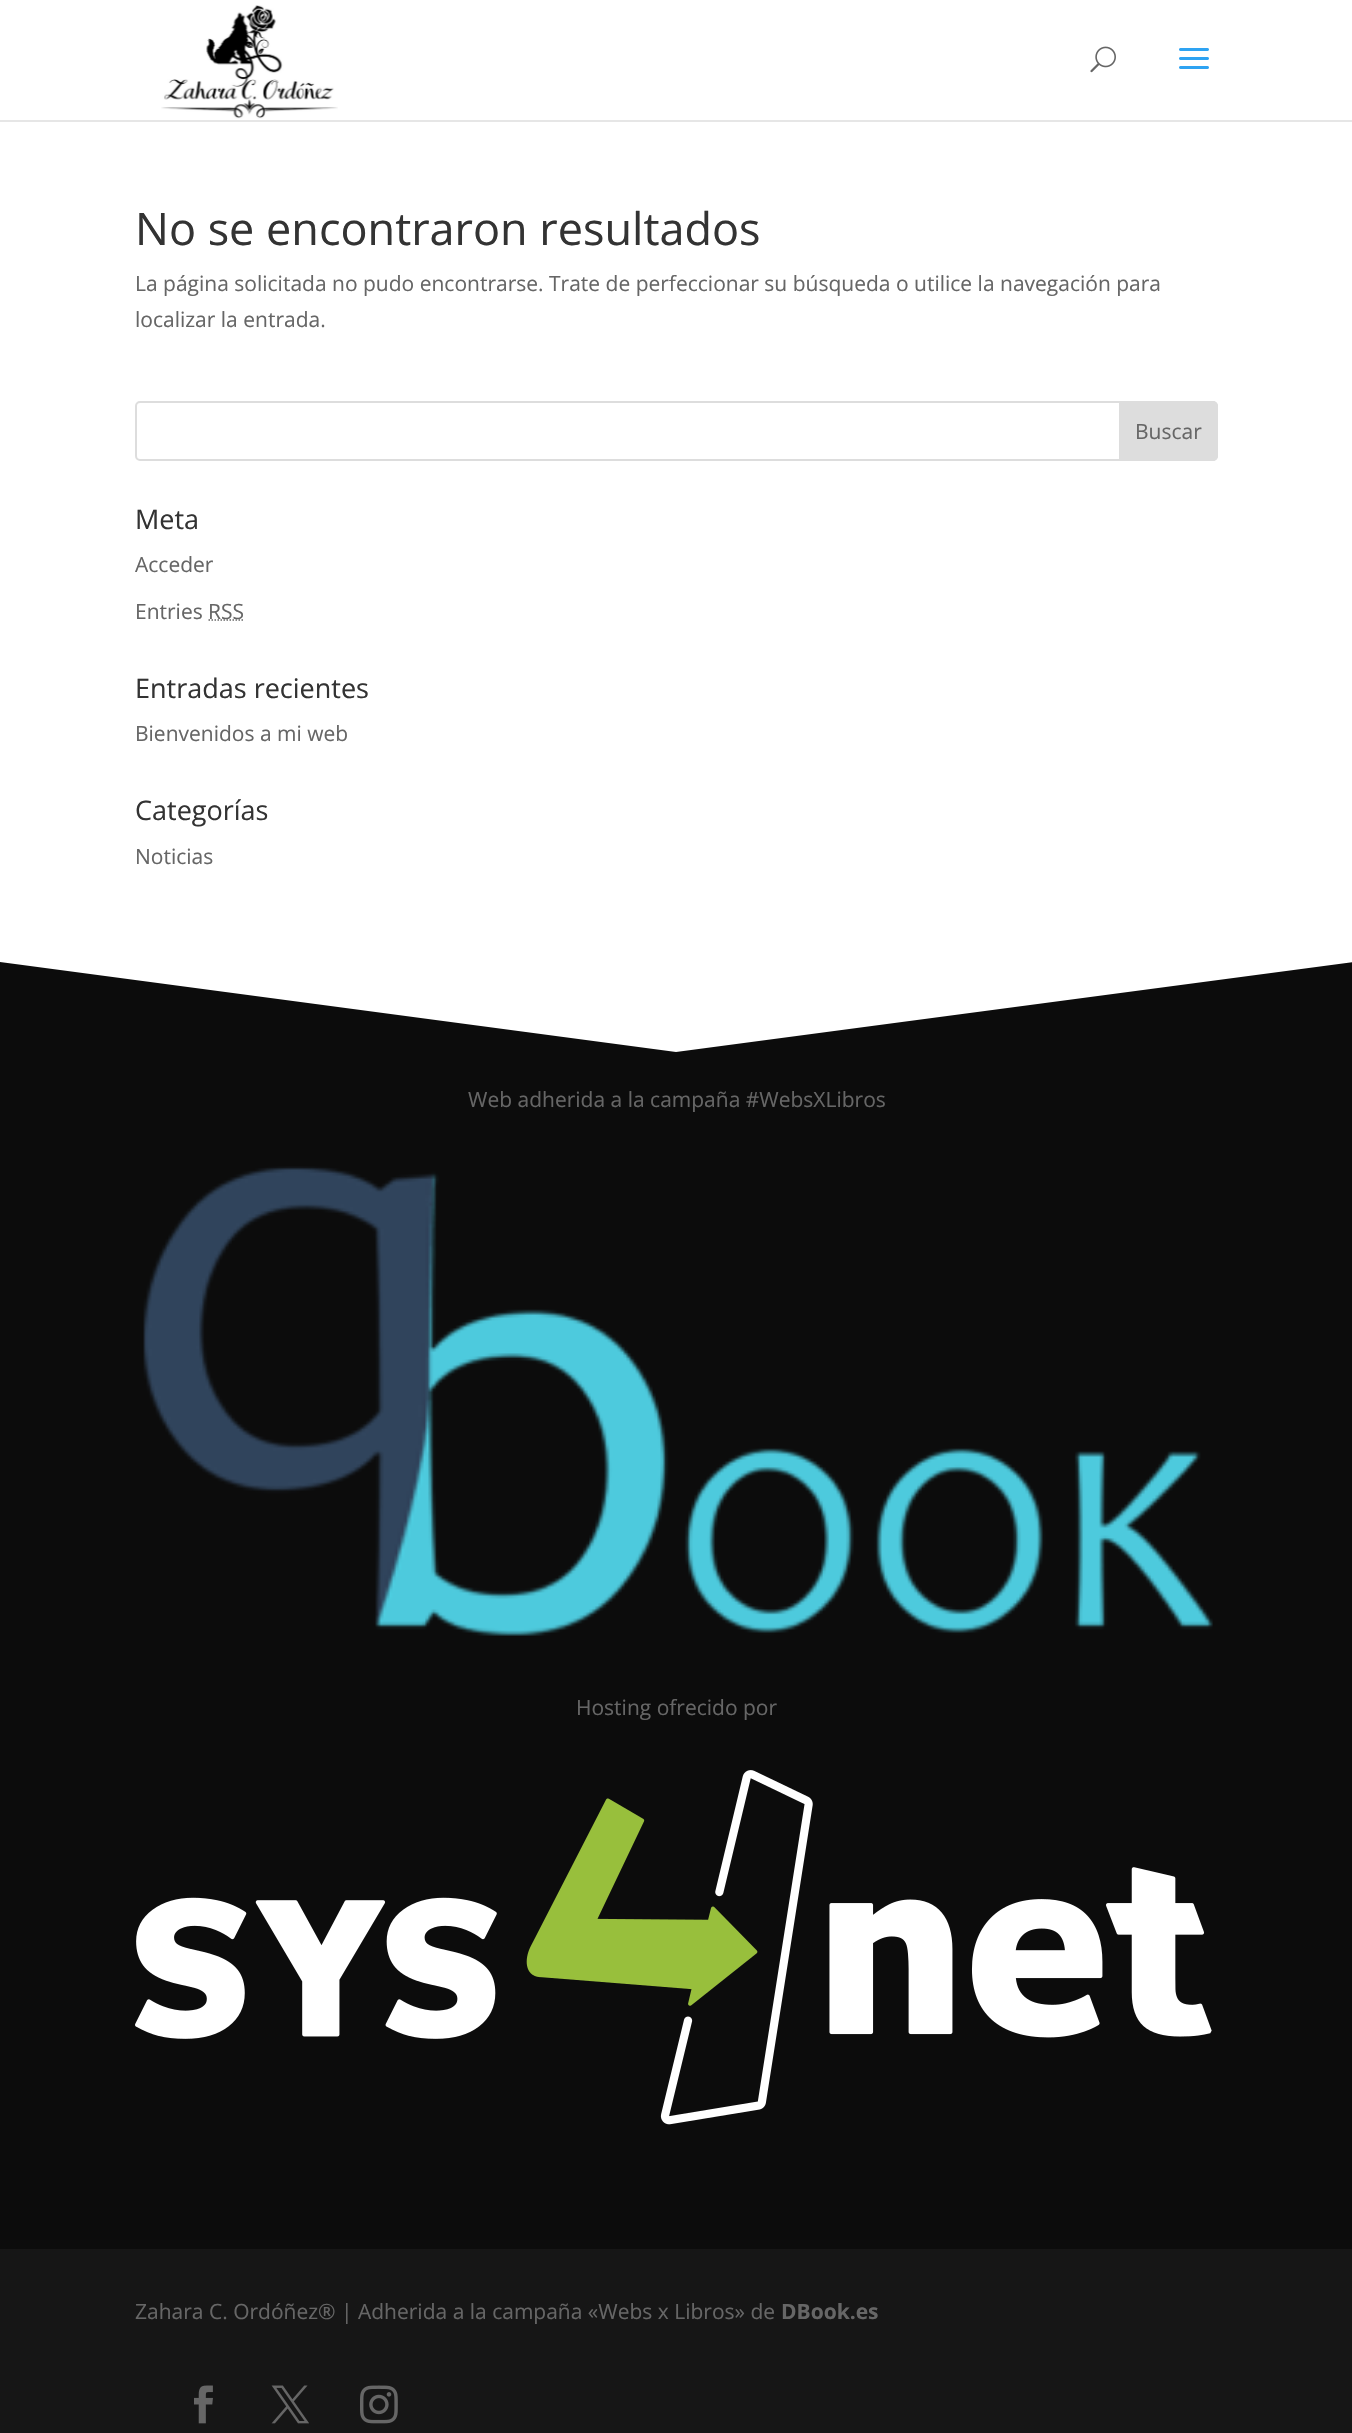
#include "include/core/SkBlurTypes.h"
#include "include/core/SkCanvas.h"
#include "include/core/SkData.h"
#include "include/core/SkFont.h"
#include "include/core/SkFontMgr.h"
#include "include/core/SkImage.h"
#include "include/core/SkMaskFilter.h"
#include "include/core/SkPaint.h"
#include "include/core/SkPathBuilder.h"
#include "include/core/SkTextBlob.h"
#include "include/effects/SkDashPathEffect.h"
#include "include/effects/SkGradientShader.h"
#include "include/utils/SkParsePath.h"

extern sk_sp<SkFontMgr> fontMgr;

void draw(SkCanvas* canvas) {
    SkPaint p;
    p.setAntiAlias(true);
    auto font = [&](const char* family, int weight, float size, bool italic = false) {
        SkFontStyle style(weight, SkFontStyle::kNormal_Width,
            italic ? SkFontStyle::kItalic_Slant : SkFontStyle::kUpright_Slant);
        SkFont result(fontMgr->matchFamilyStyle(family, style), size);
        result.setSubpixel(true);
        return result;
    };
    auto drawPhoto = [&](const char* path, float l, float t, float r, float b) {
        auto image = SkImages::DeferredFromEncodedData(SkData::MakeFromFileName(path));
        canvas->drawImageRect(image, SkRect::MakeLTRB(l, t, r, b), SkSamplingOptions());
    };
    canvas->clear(0xFFFFFFFF);
    p.setColor(0xFFE6E6E6);
    canvas->drawRect(SkRect::MakeLTRB(0, 120, 1352, 122), p);
    drawPhoto("media/1.png", 161, 5, 338, 119);
    drawPhoto("media/2.png", 1090, 46, 1116, 73);
    drawPhoto("media/3.png", 1179, 48, 1209, 69);
    auto font1 = font("Open Sans", 400, 45);
    p.setColor(0xFF333333);
    canvas->drawString("No se encontraron resultados", 135, 245, font1, p);
    auto font2 = font("Open Sans", 400, 21);
    p.setColor(0xFF666666);
    canvas->drawString("La página solicitada no pudo encontrarse. Trate de perfeccionar su búsqueda o utilice la navegación para", 135, 291, font2, p);
    canvas->drawString("localizar la entrada.", 135, 327, font2, p);
    p.setStyle(SkPaint::kStroke_Style);
    p.setStrokeWidth(2);
    p.setColor(0xFFDDDDDD);
    canvas->drawRoundRect(SkRect::MakeLTRB(136, 402, 1217, 460), 4, 4, p);
    p.setStyle(SkPaint::kFill_Style);
    canvas->drawPath(SkPathBuilder().moveTo(1120, 402).lineTo(1213, 402).cubicTo(1215, 402, 1217, 404, 1217, 406).lineTo(1217, 456).cubicTo(1217, 458, 1215, 460, 1213, 460).lineTo(1120, 460).close().detach(), p);
    p.setStyle(SkPaint::kStroke_Style);
    canvas->drawPath(SkPathBuilder().moveTo(1120, 402).lineTo(1213, 402).cubicTo(1215, 402, 1217, 404, 1217, 406).lineTo(1217, 456).cubicTo(1217, 458, 1215, 460, 1213, 460).lineTo(1120, 460).close().detach(), p);
    p.setStyle(SkPaint::kFill_Style);
    p.setColor(0xFF666666);
    canvas->drawString("Buscar", 1135, 439, font2, p);
    auto font3 = font("Open Sans", 400, 27);
    p.setColor(0xFF333333);
    canvas->drawString("Meta", 135, 529, font3, p);
    p.setColor(0xFF666666);
    canvas->drawString("Acceder", 135, 572, font2, p);
    canvas->drawString("Entries", 135, 619, font2, p);
    p.setStyle(SkPaint::kStroke_Style);
    p.setStrokeWidth(1.5f);
    p.setPathEffect(SkDashPathEffect::Make({{1.5f, 1.5f}}, 0));
    canvas->drawPath(SkPathBuilder().moveTo(208.5f, 620).lineTo(244.5f, 620).detach(), p);
    p.setPathEffect(nullptr);
    p.setStyle(SkPaint::kFill_Style);
    canvas->drawString("RSS", 208, 619, font2, p);
    p.setColor(0xFF333333);
    canvas->drawString("Entradas recientes", 135, 698, font3, p);
    p.setColor(0xFF666666);
    canvas->drawString("Bienvenidos a mi web", 135, 741, font2, p);
    p.setColor(0xFF333333);
    canvas->drawString("Categorías", 135, 820, font3, p);
    p.setColor(0xFF666666);
    canvas->drawString("Noticias", 135, 864, font2, p);
    p.setColor(0xFF0C0C0C);
    canvas->drawRect(SkRect::MakeLTRB(0, 962, 1352, 2249), p);
    p.setColor(0xFFFFFFFF);
    canvas->drawPath(SkPathBuilder().moveTo(676, 1052).lineTo(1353, 962).lineTo(0, 962).close().detach(), p);
    p.setColor(0xFF666666);
    canvas->drawString("Web adherida a la campaña #WebsXLibros", 468, 1107, font2, p);
    drawPhoto("media/4.png", 143, 1166, 1213, 1636);
    canvas->drawString("Hosting ofrecido por", 576, 1715, font2, p);
    drawPhoto("media/5.png", 135, 1770, 1212, 2125);
    p.setColor(0xFF161616);
    canvas->drawRect(SkRect::MakeLTRB(0, 2249, 1352, 2433), p);
    p.setColor(0xFF666666);
    canvas->drawString("Zahara C. Ordóñez® | Adherida a la campaña «Webs x Libros» de", 135, 2319, font2, p);
    auto font4 = font("Open Sans", 700, 21);
    canvas->drawString("DBook.es", 781, 2319, font4, p);
    drawPhoto("media/6.png", 194, 2385, 213, 2424);
    drawPhoto("media/7.png", 271, 2385, 309, 2424);
    drawPhoto("media/8.png", 360, 2385, 398, 2424);
}
